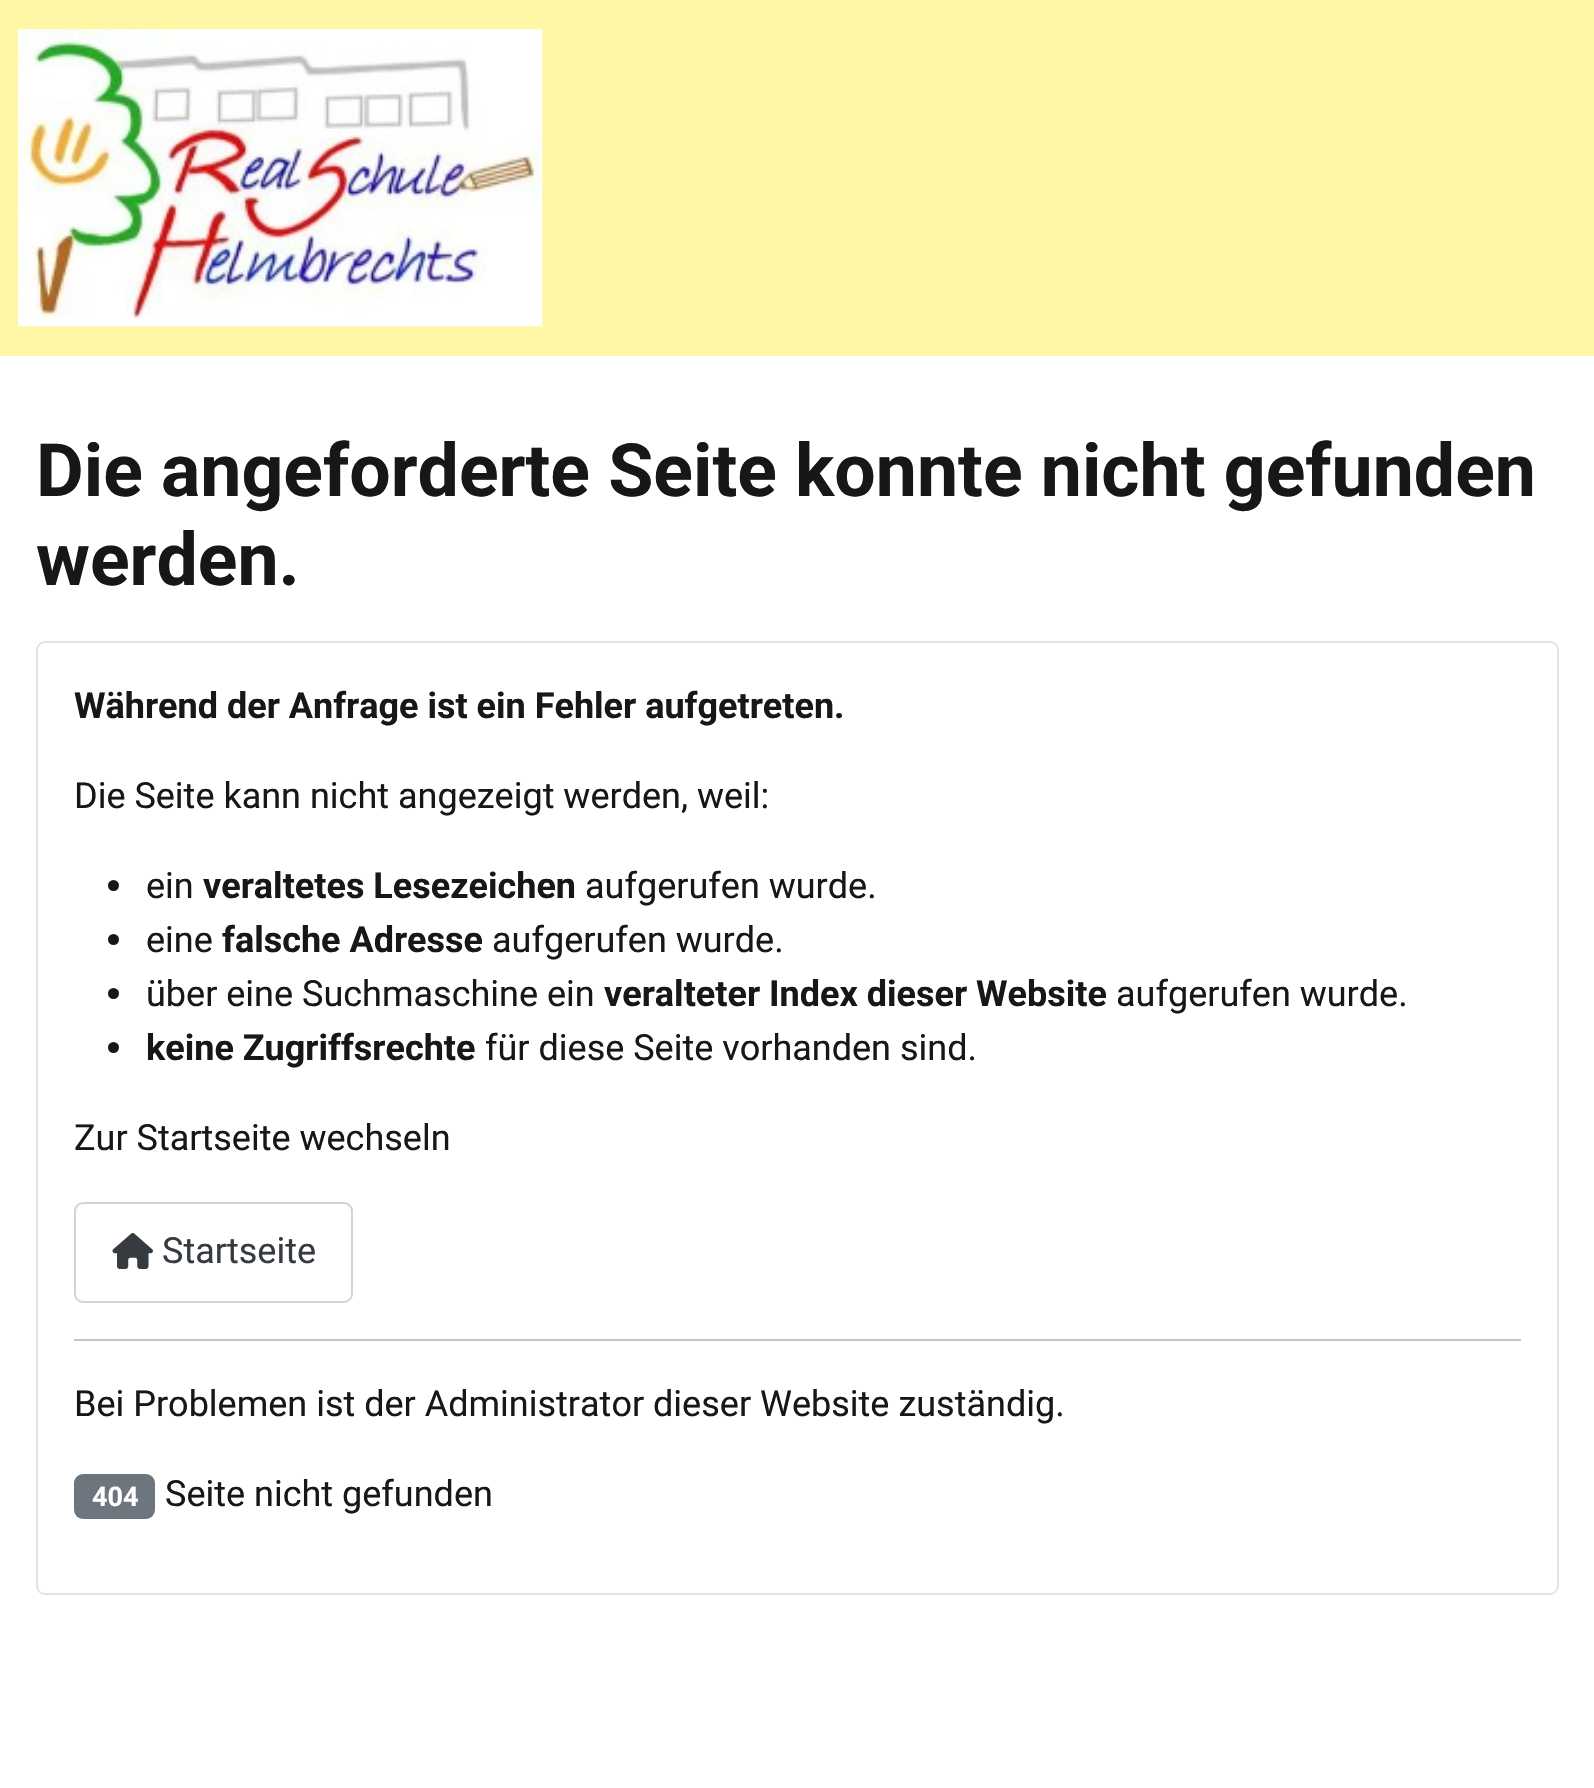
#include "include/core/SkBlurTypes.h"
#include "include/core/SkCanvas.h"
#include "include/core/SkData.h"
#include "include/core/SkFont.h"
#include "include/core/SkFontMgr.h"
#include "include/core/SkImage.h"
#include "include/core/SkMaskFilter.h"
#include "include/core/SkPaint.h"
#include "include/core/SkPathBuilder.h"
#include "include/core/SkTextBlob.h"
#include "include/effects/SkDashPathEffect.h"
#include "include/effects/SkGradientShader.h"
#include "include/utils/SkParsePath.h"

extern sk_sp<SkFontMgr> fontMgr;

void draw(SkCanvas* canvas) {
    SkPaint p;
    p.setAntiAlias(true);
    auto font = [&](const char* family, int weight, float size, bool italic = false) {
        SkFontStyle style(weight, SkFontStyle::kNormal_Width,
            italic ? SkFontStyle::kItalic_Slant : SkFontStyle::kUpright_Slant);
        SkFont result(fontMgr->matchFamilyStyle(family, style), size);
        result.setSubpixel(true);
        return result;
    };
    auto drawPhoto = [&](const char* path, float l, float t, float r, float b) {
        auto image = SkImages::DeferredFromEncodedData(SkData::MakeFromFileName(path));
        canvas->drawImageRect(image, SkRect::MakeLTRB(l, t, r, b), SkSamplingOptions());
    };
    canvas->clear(0xFFFFFFFF);
    p.setColor(0xFFFFF6A6);
    canvas->drawRect(SkRect::MakeLTRB(0, 0, 1594, 356), p);
    drawPhoto("media/1.png", 18, 29, 543, 327);
    auto font1 = font("Roboto", 700, 73.4f);
    p.setColor(0xFF171717);
    canvas->drawString("Die angeforderte Seite konnte nicht gefunden", 36, 496, font1, p);
    canvas->drawString("werden.", 36, 585, font1, p);
    p.setStyle(SkPaint::kStroke_Style);
    p.setStrokeWidth(2);
    p.setColor(0xFFDFE3E7);
    canvas->drawRoundRect(SkRect::MakeLTRB(37, 642, 1558, 1594), 8, 8, p);
    auto font2 = font("Roboto", 700, 36);
    p.setStyle(SkPaint::kFill_Style);
    p.setColor(0xFF171717);
    canvas->drawString("Während der Anfrage ist ein Fehler aufgetreten.", 74, 718, font2, p);
    auto font3 = font("Roboto", 400, 36);
    canvas->drawString("Die Seite kann nicht angezeigt werden, weil:", 74, 808, font3, p);
    canvas->drawCircle(113.5f, 885.5f, 5.5f, p);
    canvas->drawString("ein", 146, 898, font3, p);
    canvas->drawString("veraltetes Lesezeichen", 203, 898, font2, p);
    canvas->drawString("aufgerufen wurde.", 585, 898, font3, p);
    canvas->drawCircle(113.5f, 939.5f, 5.5f, p);
    canvas->drawString("eine", 146, 952, font3, p);
    canvas->drawString("falsche Adresse", 222, 952, font2, p);
    canvas->drawString("aufgerufen wurde.", 492, 952, font3, p);
    canvas->drawCircle(113.5f, 993.5f, 5.5f, p);
    canvas->drawString("über eine Suchmaschine ein", 146, 1006, font3, p);
    canvas->drawString("veralteter Index dieser Website", 604, 1006, font2, p);
    canvas->drawString("aufgerufen wurde.", 1116, 1006, font3, p);
    canvas->drawCircle(113.5f, 1047.5f, 5.5f, p);
    canvas->drawString("keine Zugriffsrechte", 146, 1060, font2, p);
    canvas->drawString("für diese Seite vorhanden sind.", 485, 1060, font3, p);
    canvas->drawString("Zur Startseite wechseln", 74, 1150, font3, p);
    p.setStyle(SkPaint::kStroke_Style);
    p.setColor(0xFFCED4DA);
    canvas->drawRoundRect(SkRect::MakeLTRB(75, 1203, 352, 1302), 8, 8, p);
    drawPhoto("media/2.png", 112, 1233, 153, 1269);
    p.setStyle(SkPaint::kFill_Style);
    p.setColor(0xFF353B41);
    canvas->drawString("Startseite", 162, 1263, font3, p);
    p.setColor(0xFFC5C5C5);
    canvas->drawRect(SkRect::MakeLTRB(74, 1339, 1521, 1341), p);
    p.setColor(0xFF171717);
    canvas->drawString("Bei Problemen ist der Administrator dieser Website zuständig.", 74, 1416, font3, p);
    p.setColor(0xFF6D757E);
    canvas->drawRoundRect(SkRect::MakeLTRB(74, 1474, 155, 1519), 9, 9, p);
    auto font4 = font("Roboto", 700, 27);
    p.setColor(0xFFFFFFFF);
    canvas->drawString("404", 92, 1506, font4, p);
    p.setColor(0xFF171717);
    canvas->drawString("Seite nicht gefunden", 165, 1506, font3, p);
}
